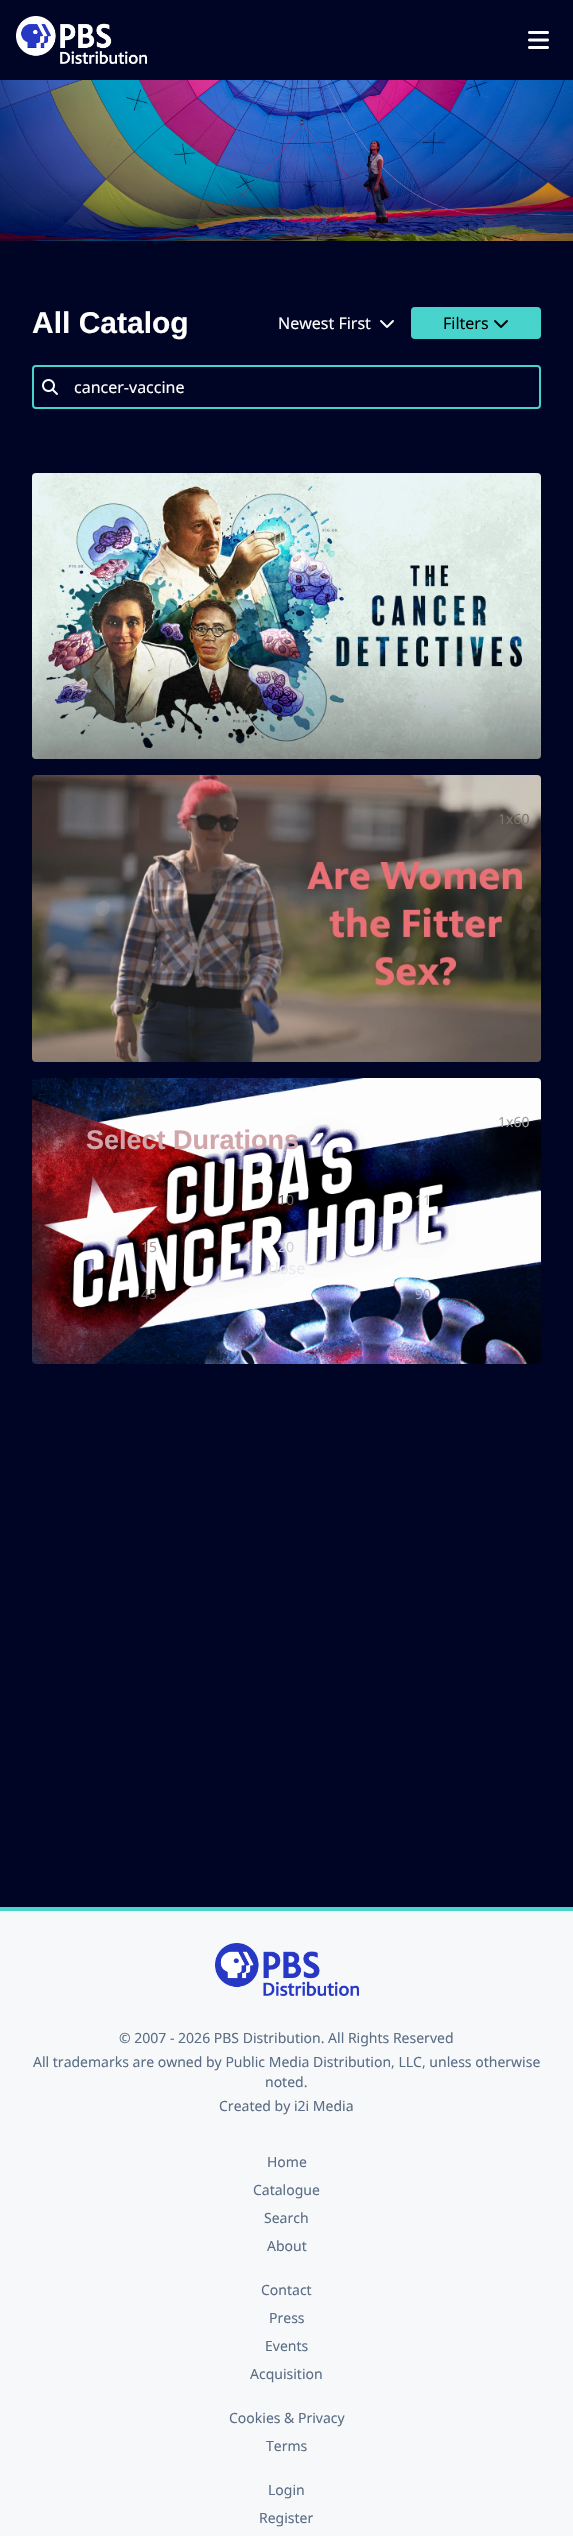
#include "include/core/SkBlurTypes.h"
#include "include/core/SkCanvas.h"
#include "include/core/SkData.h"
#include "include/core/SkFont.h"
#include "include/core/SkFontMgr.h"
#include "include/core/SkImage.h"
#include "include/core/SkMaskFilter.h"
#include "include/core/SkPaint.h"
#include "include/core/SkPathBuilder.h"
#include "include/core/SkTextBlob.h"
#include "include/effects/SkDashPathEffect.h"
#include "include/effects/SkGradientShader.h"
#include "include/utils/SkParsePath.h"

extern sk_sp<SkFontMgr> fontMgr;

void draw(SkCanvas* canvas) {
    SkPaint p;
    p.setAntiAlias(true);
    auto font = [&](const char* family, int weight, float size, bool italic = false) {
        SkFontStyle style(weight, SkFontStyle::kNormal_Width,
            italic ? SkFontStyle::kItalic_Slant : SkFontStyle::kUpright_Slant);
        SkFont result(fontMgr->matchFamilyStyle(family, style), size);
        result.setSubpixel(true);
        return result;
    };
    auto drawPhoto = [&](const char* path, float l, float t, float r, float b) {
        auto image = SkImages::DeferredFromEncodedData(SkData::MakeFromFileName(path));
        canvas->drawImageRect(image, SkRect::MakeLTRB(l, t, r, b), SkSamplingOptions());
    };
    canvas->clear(0xFF000525);
    drawPhoto("media/1.png", 16, 16, 147, 64);
    drawPhoto("media/2.png", 528, 31, 549, 49);
    drawPhoto("media/3.png", 0, 80, 573, 241);
    auto font1 = font("Liberation Sans", 700, 30);
    p.setColor(0xFFFFFFFF);
    canvas->drawString("All Catalog", 32, 333, font1, p);
    auto font2 = font("Noto Sans", 400, 16);
    canvas->drawString("Newest First", 278, 329, font2, p);
    drawPhoto("media/4.png", 380, 320, 394, 328);
    p.setColor(0xFF48D3CD);
    canvas->drawRoundRect(SkRect::MakeLTRB(411, 307, 541, 339), 4, 4, p);
    p.setColor(0xFF000000);
    canvas->drawString("Filters", 443, 329, font2, p);
    drawPhoto("media/5.png", 494, 320, 508, 328);
    p.setStyle(SkPaint::kStroke_Style);
    p.setStrokeWidth(2);
    p.setColor(0xFF48D3CD);
    canvas->drawRoundRect(SkRect::MakeLTRB(33, 366, 540, 408), 3, 3, p);
    drawPhoto("media/6.png", 42, 379, 58, 395);
    p.setStyle(SkPaint::kFill_Style);
    p.setColor(0xFFFFFFFF);
    canvas->drawString("cancer-vaccine", 74, 393, font2, p);
    drawPhoto("media/7.png", 32, 473, 541, 759);
    drawPhoto("media/8.png", 32, 775, 541, 1062);
    auto font3 = font("Noto Sans", 400, 14);
    p.setColor(0xFF7A736B);
    canvas->drawString("1x60", 498, 824, font3, p);
    drawPhoto("media/9.png", 32, 1078, 541, 1364);
    p.setColor(0xFFA0A1A4);
    canvas->drawString("1x60", 498, 1127, font3, p);
    auto font4 = font("Liberation Sans", 700, 27);
    p.setColor(0xFFD1A5A9);
    canvas->drawString("Select Durations", 86, 1149, font4, p);
    p.setColor(0xFF656264);
    canvas->drawString("10", 278, 1205, font3, p);
    p.setColor(0xFFCCCCCC);
    canvas->drawString("11", 415, 1205, font3, p);
    p.setColor(0xFFB19798);
    canvas->drawString("15", 141, 1252, font3, p);
    p.setColor(0xFFD0D0DD);
    canvas->drawString("20", 278, 1252, font3, p);
    p.setColor(0xFF695D5E);
    canvas->drawString("45", 141, 1299, font3, p);
    p.setColor(0xFFABB3D6);
    canvas->drawString("90", 415, 1299, font3, p);
    p.setColor(0xFFEAEAF0);
    canvas->drawString("close", 267, 1274, font2, p);
    p.setColor(0xFF48D3CD);
    canvas->drawRect(SkRect::MakeLTRB(0, 1907, 573, 1911), p);
    p.setColor(0xFFF6F8FA);
    canvas->drawRect(SkRect::MakeLTRB(0, 1911, 573, 2536), p);
    drawPhoto("media/10.png", 215, 1943, 359, 1996);
    p.setColor(0xFF5C6E85);
    {
        const struct { const char* s; float x, y; } items[] = {
            {"© 2007 - 2026 PBS Distribution. All Rights Reserved", 119, 2043},
            {"All trademarks are owned by Public Media Distribution, LLC, unless otherwise", 33, 2067},
            {"noted.", 265, 2087},
            {"Created by i2i Media", 219, 2111},
            {"Home", 267, 2167},
            {"Catalogue", 253, 2195},
            {"Search", 264, 2223},
            {"About", 267, 2251},
            {"Contact", 261, 2295},
            {"Press", 269, 2323},
            {"Events", 265, 2351},
            {"Acquisition", 250, 2379},
            {"Cookies & Privacy", 229, 2423},
            {"Terms", 266, 2451},
            {"Login", 268, 2495},
            {"Register", 259, 2523},
        };
        for (auto [s, x, y] : items) {
            canvas->drawString(s, x, y, font3, p);
        }
    }
}
